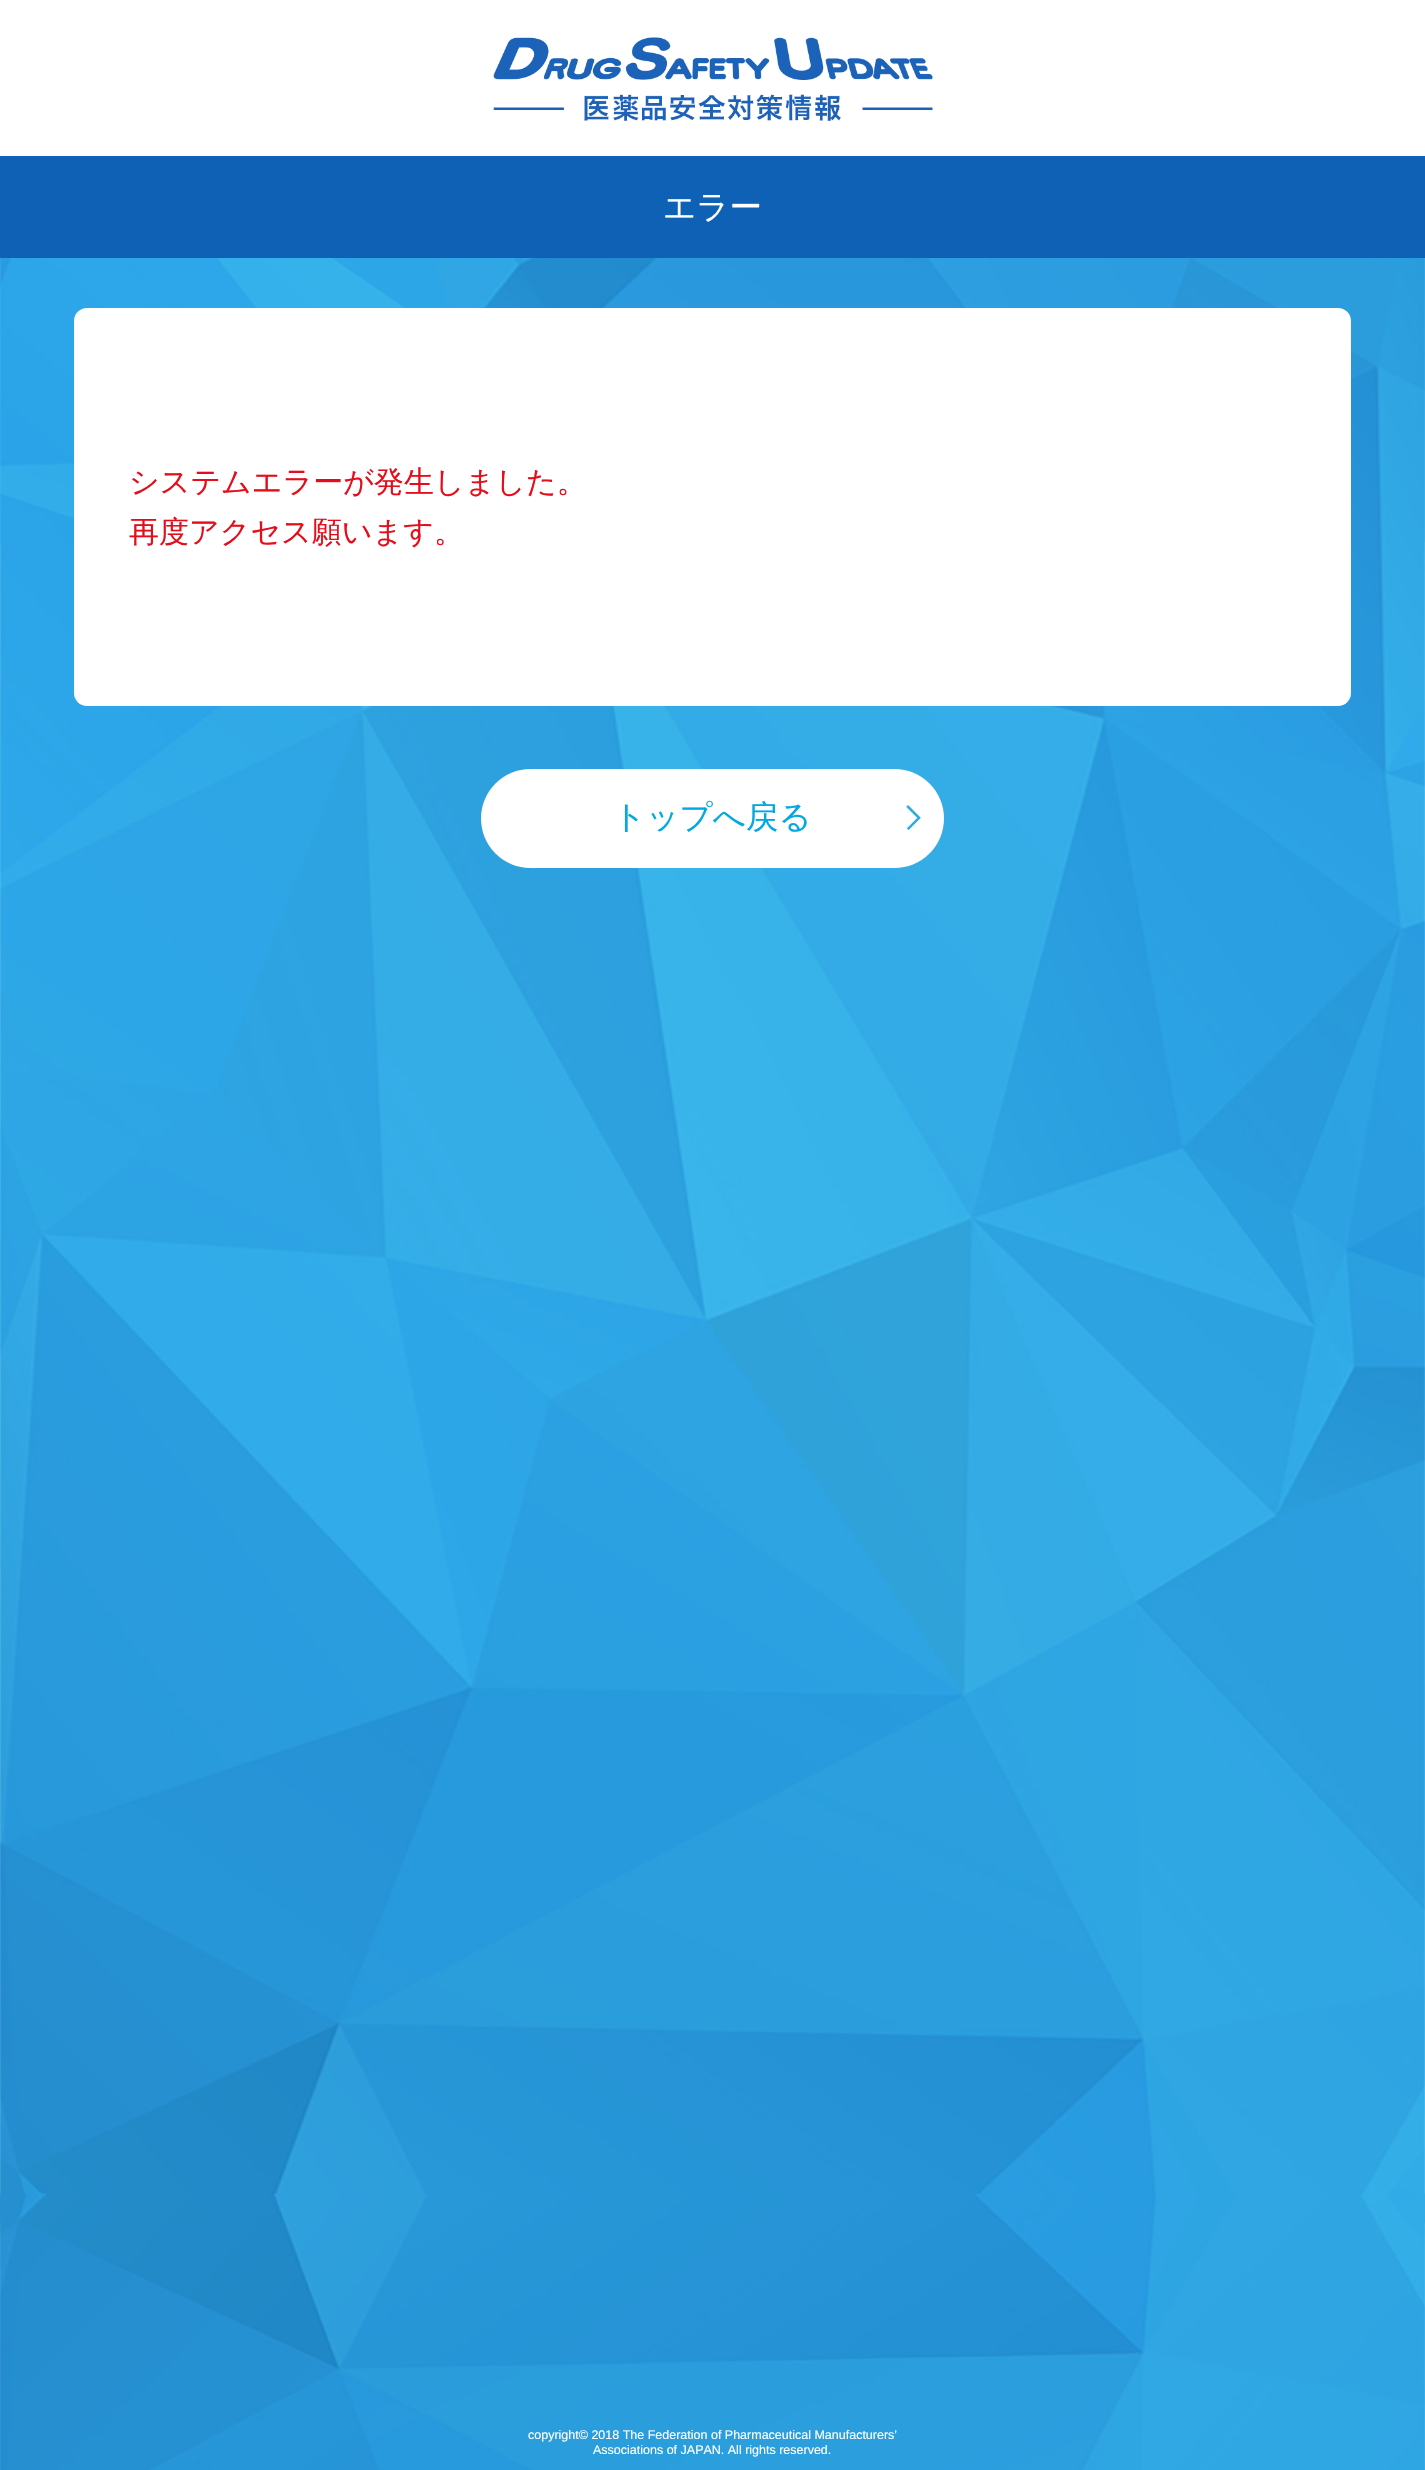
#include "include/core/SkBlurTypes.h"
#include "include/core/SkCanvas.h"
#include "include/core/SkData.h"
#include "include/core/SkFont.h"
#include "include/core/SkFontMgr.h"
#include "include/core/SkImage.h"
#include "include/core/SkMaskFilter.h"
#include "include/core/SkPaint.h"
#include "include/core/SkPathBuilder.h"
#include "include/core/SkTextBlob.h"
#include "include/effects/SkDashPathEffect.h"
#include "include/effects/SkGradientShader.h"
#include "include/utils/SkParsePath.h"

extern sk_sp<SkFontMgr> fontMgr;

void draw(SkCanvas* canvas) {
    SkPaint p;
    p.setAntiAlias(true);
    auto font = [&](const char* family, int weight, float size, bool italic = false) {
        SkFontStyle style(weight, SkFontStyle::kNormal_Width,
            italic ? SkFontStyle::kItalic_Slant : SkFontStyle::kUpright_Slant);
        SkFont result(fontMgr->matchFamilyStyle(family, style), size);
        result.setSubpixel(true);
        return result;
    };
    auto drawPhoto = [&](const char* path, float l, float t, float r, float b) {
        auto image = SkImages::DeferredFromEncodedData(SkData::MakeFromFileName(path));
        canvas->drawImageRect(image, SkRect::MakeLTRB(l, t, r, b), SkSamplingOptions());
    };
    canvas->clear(0xFFFFFFFF);
    drawPhoto("media/1.png", 0, 258, 1425, 2470);
    drawPhoto("media/2.png", 493, 37, 933, 121);
    p.setColor(0xFF0F61B5);
    canvas->drawRect(SkRect::MakeLTRB(0, 156, 1425, 258), p);
    auto font1 = font("WenQuanYi Zen Hei", 500, 32.5f);
    p.setColor(0xFFFFFFFF);
    canvas->drawString("エラー", 663, 218, font1, p);
    canvas->drawRoundRect(SkRect::MakeLTRB(74, 308, 1351, 706), 13, 13, p);
    auto font2 = font("WenQuanYi Zen Hei", 500, 30);
    p.setColor(0xFFE60D1B);
    canvas->drawString("システムエラーが発生しました。", 129, 492, font2, p);
    canvas->drawString("再度アクセス願います。", 129, 542, font2, p);
    p.setColor(0xFFFFFFFF);
    canvas->drawRoundRect(SkRect::MakeLTRB(481, 769, 944, 868), 49.5f, 49.5f, p);
    drawPhoto("media/3.png", 906, 805, 921, 830);
    p.setColor(0xFF00A9E1);
    canvas->drawString("トップへ戻る", 613, 828, font1, p);
    auto font3 = font("Liberation Sans", 400, 12.5f);
    p.setColor(0xFFFFFFFF);
    canvas->drawString("copyright© 2018 The Federation of Pharmaceutical Manufacturers’", 528, 2439, font3, p);
    canvas->drawString("Associations of JAPAN. All rights reserved.", 593, 2454, font3, p);
}
